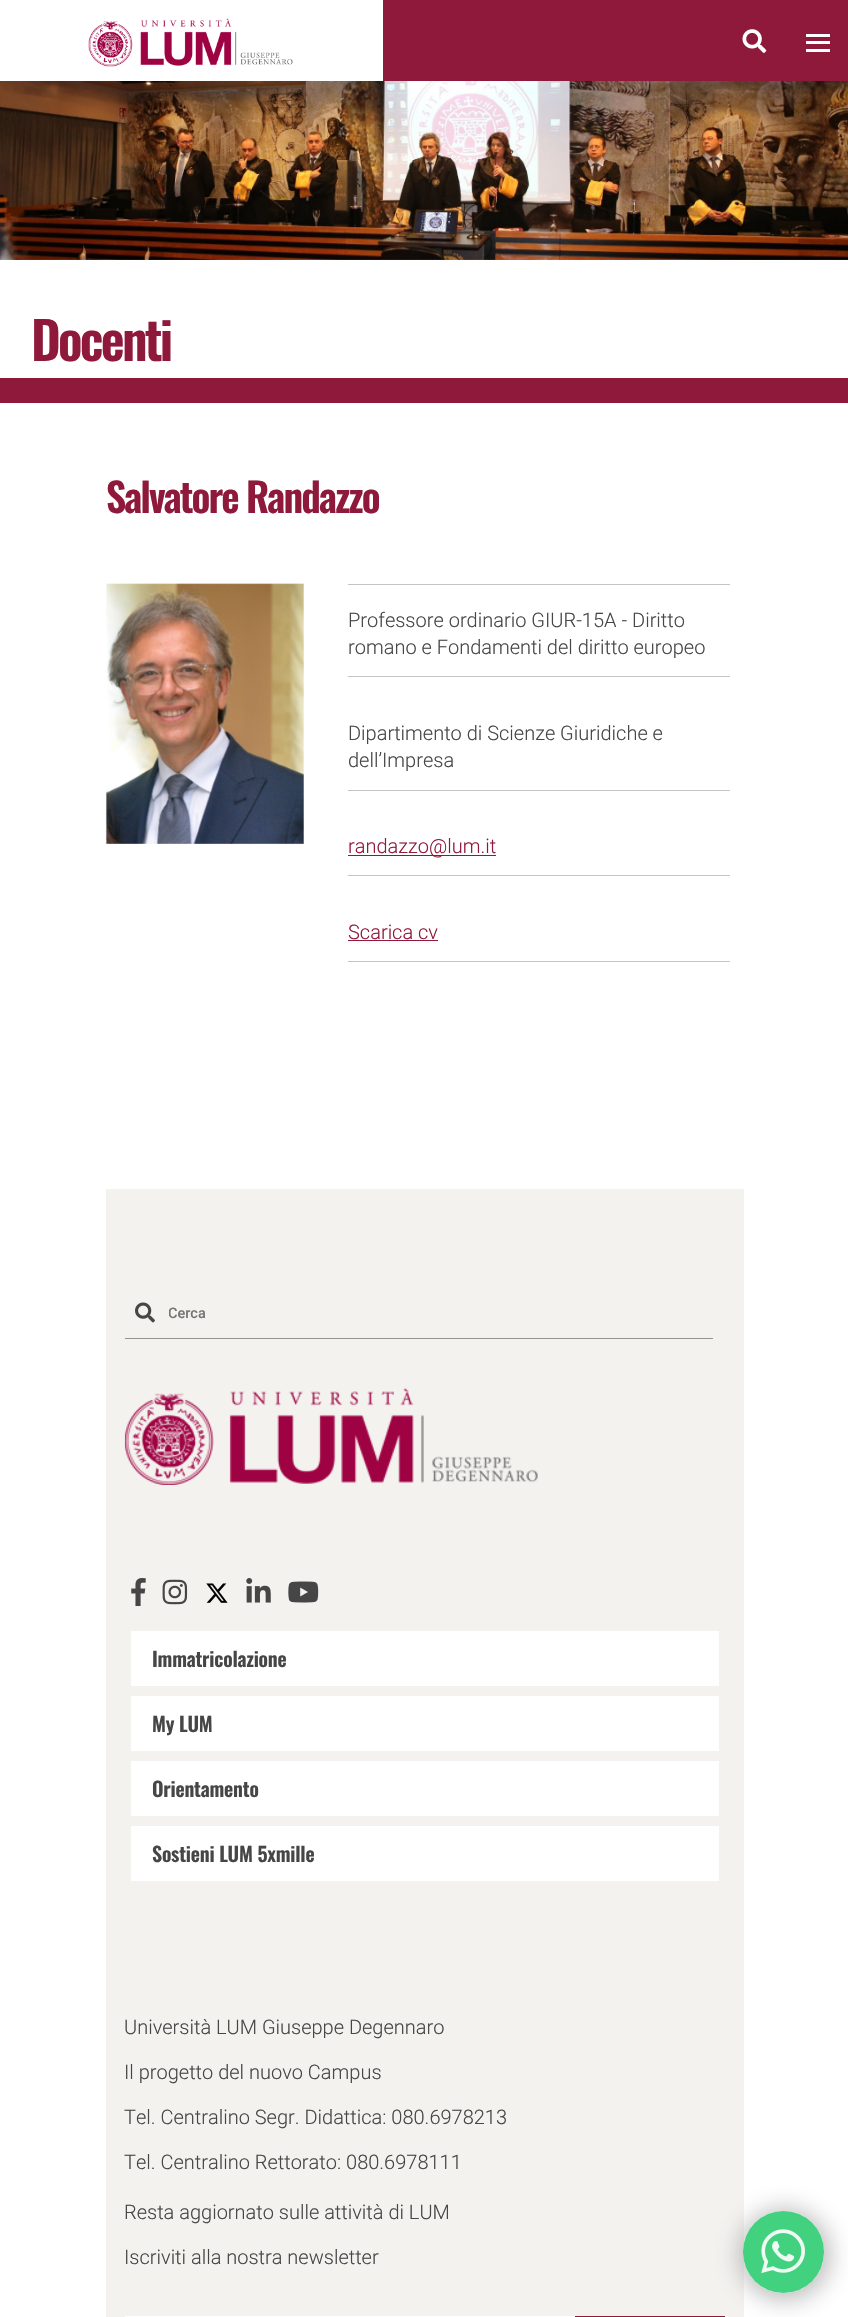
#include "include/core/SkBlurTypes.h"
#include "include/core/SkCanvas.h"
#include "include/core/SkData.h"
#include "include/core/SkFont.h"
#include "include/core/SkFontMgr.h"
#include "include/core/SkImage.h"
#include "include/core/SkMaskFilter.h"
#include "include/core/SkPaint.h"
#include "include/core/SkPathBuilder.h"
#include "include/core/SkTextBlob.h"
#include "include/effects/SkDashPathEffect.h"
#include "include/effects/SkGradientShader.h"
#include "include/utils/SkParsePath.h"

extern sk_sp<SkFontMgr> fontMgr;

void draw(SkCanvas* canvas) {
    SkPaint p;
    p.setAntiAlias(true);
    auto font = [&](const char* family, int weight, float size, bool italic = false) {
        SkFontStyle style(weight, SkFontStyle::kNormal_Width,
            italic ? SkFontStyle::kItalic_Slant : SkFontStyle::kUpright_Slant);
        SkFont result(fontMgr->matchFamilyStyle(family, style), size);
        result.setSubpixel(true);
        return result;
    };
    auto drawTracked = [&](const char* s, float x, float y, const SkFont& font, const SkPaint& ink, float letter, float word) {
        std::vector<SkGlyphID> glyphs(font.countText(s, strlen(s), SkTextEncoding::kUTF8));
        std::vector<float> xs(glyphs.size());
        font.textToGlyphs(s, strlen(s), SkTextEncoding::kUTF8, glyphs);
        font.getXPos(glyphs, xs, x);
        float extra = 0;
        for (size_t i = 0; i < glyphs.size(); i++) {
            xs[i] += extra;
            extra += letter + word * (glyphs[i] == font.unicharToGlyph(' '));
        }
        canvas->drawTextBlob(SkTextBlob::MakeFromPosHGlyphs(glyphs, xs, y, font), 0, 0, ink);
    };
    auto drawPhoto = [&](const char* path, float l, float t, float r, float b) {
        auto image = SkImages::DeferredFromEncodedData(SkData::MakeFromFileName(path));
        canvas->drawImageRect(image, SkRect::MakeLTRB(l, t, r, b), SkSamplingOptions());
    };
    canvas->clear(0xFFFFFFFF);
    drawPhoto("media/1.png", 88, 18, 293, 67);
    p.setColor(0xFF8E193B);
    canvas->drawRect(SkRect::MakeLTRB(383, 0, 848, 81), p);
    drawPhoto("media/2.png", 742, 29, 767, 53);
    {
        const struct { float l, t, r, b; SkColor color; } items[] = {
            {806, 41, 830, 44, 0xFFFFFFFF},
            {806, 34, 830, 37, 0xFFFFFFFF},
            {806, 49, 830, 52, 0xFFFFFFFF},
        };
        for (auto [l, t, r, b, color] : items) {
            p.setColor(color);
            canvas->drawRect(SkRect::MakeLTRB(l, t, r, b), p);
        }
    }
    drawPhoto("media/3.png", 0, 81, 848, 260);
    auto font1 = font("Oswald", 600, 52);
    p.setColor(0xFF8E193B);
    drawTracked("Docenti", 31, 361, font1, p, -2.75f, 0);
    canvas->drawRect(SkRect::MakeLTRB(0, 378, 848, 403), p);
    auto font2 = font("Oswald", 600, 40);
    drawTracked("Salvatore Randazzo", 106, 513, font2, p, -1.9f, 0);
    drawPhoto("media/4.png", 105, 583, 304, 844);
    p.setColor(0xFFC4C4C4);
    canvas->drawRect(SkRect::MakeLTRB(348, 584, 730, 585), p);
    canvas->drawRect(SkRect::MakeLTRB(348, 676, 730, 677), p);
    auto font3 = font("Roboto", 300, 20);
    p.setColor(0xFF464646);
    canvas->drawString("Professore ordinario GIUR-15A - Diritto", 348, 627, font3, p);
    canvas->drawString("romano e Fondamenti del diritto europeo", 348, 654, font3, p);
    p.setColor(0xFFC4C4C4);
    canvas->drawRect(SkRect::MakeLTRB(348, 790, 730, 791), p);
    p.setColor(0xFF464646);
    canvas->drawString("Dipartimento di Scienze Giuridiche e", 348, 740, font3, p);
    canvas->drawString("dell’Impresa", 348, 767, font3, p);
    p.setColor(0xFFC4C4C4);
    canvas->drawRect(SkRect::MakeLTRB(348, 875, 730, 876), p);
    p.setColor(0xFF8E193B);
    canvas->drawRect(SkRect::MakeLTRB(348, 855, 496, 856), p);
    canvas->drawString("randazzo@lum.it", 348, 853, font3, p);
    p.setColor(0xFFC4C4C4);
    canvas->drawRect(SkRect::MakeLTRB(348, 961, 730, 962), p);
    p.setColor(0xFF8E193B);
    canvas->drawString("Scarica cv", 348, 939, font3, p);
    canvas->drawRect(SkRect::MakeLTRB(348, 940, 438, 941), p);
    p.setColor(0xFFF4F2EF);
    canvas->drawRect(SkRect::MakeLTRB(106, 1189, 744, 2317), p);
    drawPhoto("media/5.png", 135, 1302, 155, 1323);
    p.setColor(0xFF949392);
    canvas->drawRect(SkRect::MakeLTRB(125, 1338, 713, 1339), p);
    canvas->save();
    canvas->clipRect(SkRect::MakeLTRB(169, 1304, 694, 1321));
    auto font4 = font("Roboto", 500, 14.5f);
    p.setColor(0xFF757575);
    canvas->drawString("Cerca", 168, 1318, font4, p);
    canvas->restore();
    drawPhoto("media/6.png", 124, 1388, 538, 1485);
    drawPhoto("media/7.png", 131, 1578, 146, 1606);
    drawPhoto("media/8.png", 162, 1579, 188, 1605);
    drawPhoto("media/9.png", 206, 1583, 228, 1603);
    drawPhoto("media/10.png", 246, 1578, 271, 1603);
    drawPhoto("media/11.png", 288, 1581, 319, 1603);
    p.setColor(0xFFFFFFFF);
    canvas->drawRect(SkRect::MakeLTRB(131, 1631, 719, 1686), p);
    auto font5 = font("Oswald", 600, 20);
    p.setColor(0xFF464646);
    drawTracked("Immatricolazione", 152, 1667, font5, p, -0.2f, 0);
    p.setColor(0xFFFFFFFF);
    canvas->drawRect(SkRect::MakeLTRB(131, 1696, 719, 1751), p);
    p.setColor(0xFF464646);
    drawTracked("My LUM", 152, 1732, font5, p, -0.2f, 0);
    p.setColor(0xFFFFFFFF);
    canvas->drawRect(SkRect::MakeLTRB(131, 1761, 719, 1816), p);
    p.setColor(0xFF464646);
    drawTracked("Orientamento", 152, 1797, font5, p, -0.2f, 0);
    p.setColor(0xFFFFFFFF);
    canvas->drawRect(SkRect::MakeLTRB(131, 1826, 719, 1881), p);
    p.setColor(0xFF464646);
    drawTracked("Sostieni LUM 5xmille", 152, 1862, font5, p, -0.2f, 0);
    {
        const struct { const char* s; float x, y; } items[] = {
            {"Università LUM Giuseppe Degennaro", 124, 2034},
            {"Il progetto del nuovo Campus", 124, 2079},
            {"Tel. Centralino Segr. Didattica: 080.6978213", 124, 2124},
            {"Tel. Centralino Rettorato: 080.6978111", 124, 2169},
            {"Resta aggiornato sulle attività di LUM", 124, 2219},
            {"Iscriviti alla nostra newsletter", 124, 2264},
        };
        for (auto [s, x, y] : items) {
            canvas->drawString(s, x, y, font3, p);
        }
    }
    p.setColor(0xFFFFFFFF);
    canvas->drawRect(SkRect::MakeLTRB(125, 2316, 575, 2317), p);
    p.setColor(0xFF8E193B);
    canvas->drawRect(SkRect::MakeLTRB(575, 2316, 725, 2317), p);
    canvas->save();
    canvas->clipPath(SkPathBuilder(SkPathFillType::kEvenOdd).moveTo(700, 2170).lineTo(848, 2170).lineTo(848, 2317).lineTo(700, 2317).close().moveTo(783.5f, 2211).cubicTo(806, 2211, 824, 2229, 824, 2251.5f).lineTo(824, 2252.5f).cubicTo(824, 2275, 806, 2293, 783.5f, 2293).cubicTo(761, 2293, 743, 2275, 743, 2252.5f).lineTo(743, 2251.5f).cubicTo(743, 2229, 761, 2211, 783.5f, 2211).close().detach(), true);
    p.setColor(0xE6B2B2B2);
    p.setMaskFilter(SkMaskFilter::MakeBlur(kNormal_SkBlurStyle, 12.5f));
    canvas->drawRoundRect(SkRect::MakeLTRB(739, 2209, 830, 2300), 45.5f, 45.5f, p);
    p.setMaskFilter(nullptr);
    canvas->restore();
    p.setColor(0xE62ECC71);
    canvas->drawRoundRect(SkRect::MakeLTRB(743, 2211, 824, 2293), 40.5f, 40.5f, p);
    drawPhoto("media/12.png", 761, 2229, 805, 2274);
}
